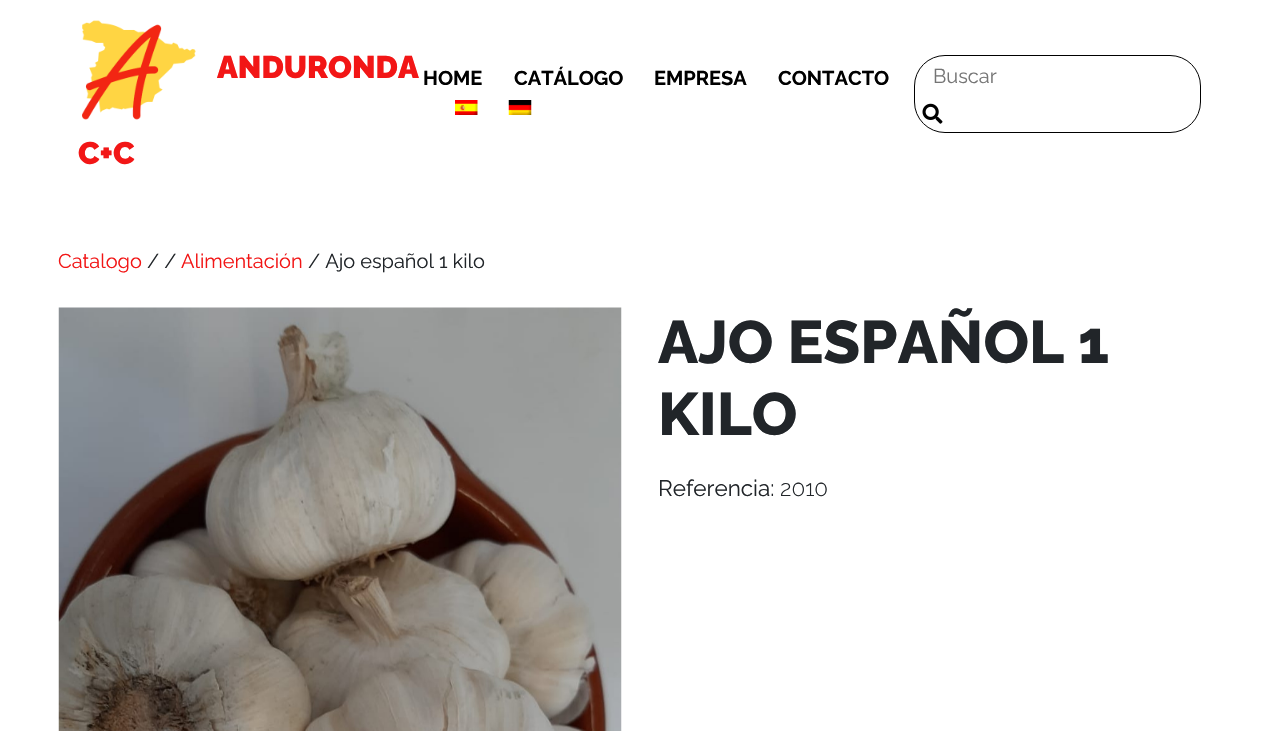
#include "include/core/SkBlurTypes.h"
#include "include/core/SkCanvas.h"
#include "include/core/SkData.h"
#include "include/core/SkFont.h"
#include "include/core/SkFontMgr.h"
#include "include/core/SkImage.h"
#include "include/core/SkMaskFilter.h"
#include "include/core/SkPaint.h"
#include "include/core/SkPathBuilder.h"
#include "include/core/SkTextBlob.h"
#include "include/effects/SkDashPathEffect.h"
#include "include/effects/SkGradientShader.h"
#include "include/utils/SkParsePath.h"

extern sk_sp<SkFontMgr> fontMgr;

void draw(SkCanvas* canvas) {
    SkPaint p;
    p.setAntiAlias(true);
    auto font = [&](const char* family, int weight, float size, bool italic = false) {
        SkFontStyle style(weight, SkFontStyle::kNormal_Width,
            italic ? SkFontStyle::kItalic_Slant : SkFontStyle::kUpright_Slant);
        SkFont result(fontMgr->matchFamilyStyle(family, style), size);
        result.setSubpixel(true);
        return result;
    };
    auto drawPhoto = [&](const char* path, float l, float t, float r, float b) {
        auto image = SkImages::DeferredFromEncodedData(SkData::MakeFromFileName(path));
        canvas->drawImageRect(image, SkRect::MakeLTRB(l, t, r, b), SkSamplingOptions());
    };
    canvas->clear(0xFFFFFFFF);
    drawPhoto("media/1.png", 82, 20, 196, 120);
    auto font1 = font("Raleway", 900, 31.25f);
    p.setColor(0xFFF21616);
    canvas->drawString("ANDURONDA", 217, 78, font1, p);
    canvas->drawString("C+C", 78, 164, font1, p);
    auto font2 = font("Raleway", 700, 20);
    p.setColor(0xFF000000);
    {
        const struct { const char* s; float x, y; } items[] = {
            {"HOME", 423, 85},
            {"CATÁLOGO", 514, 85},
            {"EMPRESA", 654, 85},
            {"CONTACTO", 778, 85},
        };
        for (auto [s, x, y] : items) {
            canvas->drawString(s, x, y, font2, p);
        }
    }
    drawPhoto("media/2.png", 455, 100, 478, 115);
    drawPhoto("media/3.png", 508, 100, 532, 115);
    p.setStyle(SkPaint::kStroke_Style);
    p.setStrokeWidth(1);
    canvas->drawRoundRect(SkRect::MakeLTRB(914.5f, 55.5f, 1200.5f, 132.5f), 30.5f, 30.5f, p);
    auto font3 = font("Raleway", 400, 20);
    p.setStyle(SkPaint::kFill_Style);
    p.setColor(0xFF757575);
    canvas->drawString("Buscar", 933, 83, font3, p);
    drawPhoto("media/4.png", 922, 103, 943, 124);
    p.setColor(0xFFF21616);
    canvas->drawString("Catalogo", 58, 268, font3, p);
    p.setColor(0xFF212529);
    canvas->drawString("/ /", 147, 268, font3, p);
    p.setColor(0xFFF21616);
    canvas->drawString("Alimentación", 181, 268, font3, p);
    p.setColor(0xFF212529);
    canvas->drawString("/ Ajo español 1 kilo", 308, 268, font3, p);
    drawPhoto("media/5.png", 58, 307, 622, 731);
    auto font4 = font("Raleway", 800, 60);
    canvas->drawString("AJO ESPAÑOL 1", 658, 363, font4, p);
    canvas->drawString("KILO", 658, 435, font4, p);
    auto font5 = font("Raleway", 400, 22.5f);
    canvas->drawString("Referencia:", 658, 496, font5, p);
    auto font6 = font("Raleway", 300, 22.5f);
    canvas->drawString("2010", 780, 496, font6, p);
}
